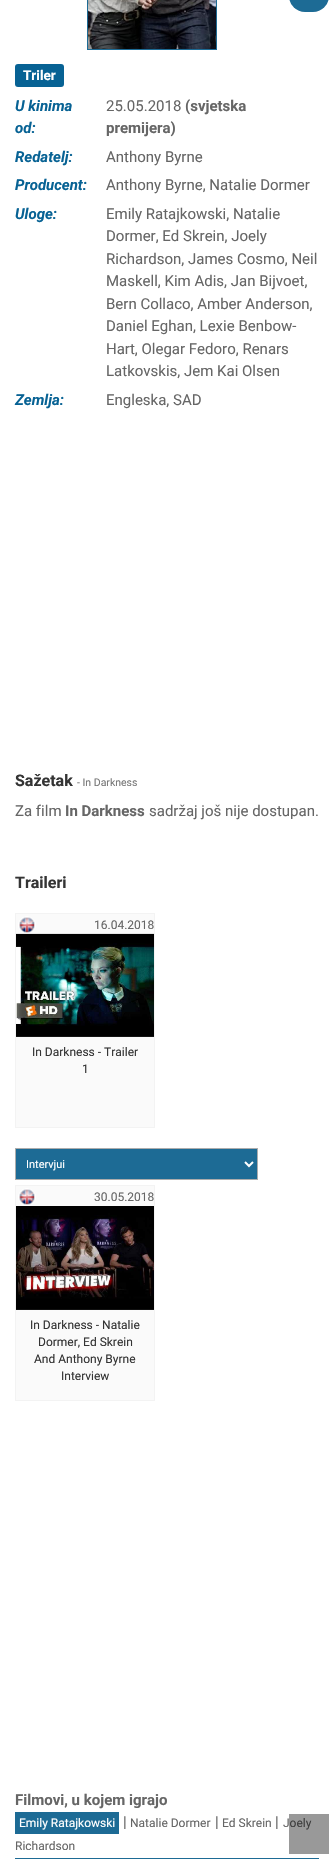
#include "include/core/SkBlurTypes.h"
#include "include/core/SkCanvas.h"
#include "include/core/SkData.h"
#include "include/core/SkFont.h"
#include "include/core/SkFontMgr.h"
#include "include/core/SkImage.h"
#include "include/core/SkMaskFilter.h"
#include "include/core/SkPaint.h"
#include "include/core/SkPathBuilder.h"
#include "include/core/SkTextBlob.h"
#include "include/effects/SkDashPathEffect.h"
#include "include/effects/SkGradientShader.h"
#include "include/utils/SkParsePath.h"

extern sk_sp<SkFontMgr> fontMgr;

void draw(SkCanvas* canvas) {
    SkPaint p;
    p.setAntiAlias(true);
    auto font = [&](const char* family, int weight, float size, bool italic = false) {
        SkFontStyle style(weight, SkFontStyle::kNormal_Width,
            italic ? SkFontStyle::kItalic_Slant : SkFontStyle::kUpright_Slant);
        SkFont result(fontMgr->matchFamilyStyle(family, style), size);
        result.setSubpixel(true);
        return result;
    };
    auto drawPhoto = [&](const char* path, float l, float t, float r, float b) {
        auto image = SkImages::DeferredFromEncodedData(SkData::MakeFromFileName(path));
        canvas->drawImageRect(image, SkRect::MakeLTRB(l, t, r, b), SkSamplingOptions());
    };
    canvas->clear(0xFFFFFFFF);
    p.setStyle(SkPaint::kStroke_Style);
    p.setStrokeWidth(1);
    p.setColor(0xFF1D6B95);
    canvas->drawRect(SkRect::MakeLTRB(87.5f, -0.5f, 216.5f, 49.5f), p);
    drawPhoto("media/1.png", 88, 0, 216, 49);
    p.setStyle(SkPaint::kFill_Style);
    canvas->drawRoundRect(SkRect::MakeLTRB(289, -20, 329, 12), 20, 20, p);
    p.setColor(0xFF076294);
    canvas->drawRoundRect(SkRect::MakeLTRB(15, 64, 64, 87), 3, 3, p);
    auto font1 = font("Roboto", 700, 13.5f);
    p.setColor(0xFFFFFFFF);
    canvas->drawString("Triler", 23, 80, font1, p);
    auto font2 = font("Roboto", 700, 15, true);
    p.setColor(0xFF076294);
    canvas->drawString("U kinima", 15, 111, font2, p);
    canvas->drawString("od:", 15, 133, font2, p);
    auto font3 = font("Roboto", 400, 15);
    p.setColor(0xFF666666);
    canvas->drawString("25.05.2018", 106, 111, font3, p);
    auto font4 = font("Roboto", 700, 15);
    canvas->drawString("(svjetska", 185, 111, font4, p);
    canvas->drawString("premijera)", 106, 133, font4, p);
    p.setColor(0xFF076294);
    canvas->drawString("Redatelj:", 15, 162, font2, p);
    p.setColor(0xFF666666);
    canvas->drawString("Anthony Byrne", 106, 162, font3, p);
    p.setColor(0xFF076294);
    canvas->drawString("Producent:", 15, 190, font2, p);
    p.setColor(0xFF666666);
    canvas->drawString("Anthony Byrne, Natalie Dormer", 106, 190, font3, p);
    p.setColor(0xFF076294);
    canvas->drawString("Uloge:", 15, 219, font2, p);
    p.setColor(0xFF666666);
    {
        const struct { const char* s; float x, y; } items[] = {
            {"Emily Ratajkowski, Natalie", 106, 219},
            {"Dormer, Ed Skrein, Joely", 106, 241},
            {"Richardson, James Cosmo, Neil", 106, 264},
            {"Maskell, Kim Adis, Jan Bijvoet,", 106, 286},
            {"Bern Collaco, Amber Anderson,", 106, 309},
            {"Daniel Eghan, Lexie Benbow-", 106, 331},
            {"Hart, Olegar Fedoro, Renars", 106, 354},
            {"Latkovskis, Jem Kai Olsen", 106, 376},
        };
        for (auto [s, x, y] : items) {
            canvas->drawString(s, x, y, font3, p);
        }
    }
    p.setColor(0xFF076294);
    canvas->drawString("Zemlja:", 15, 405, font2, p);
    p.setColor(0xFF666666);
    canvas->drawString("Engleska, SAD", 106, 405, font3, p);
    auto font5 = font("Roboto", 700, 16);
    p.setColor(0xFF343434);
    canvas->drawString("Sažetak", 15, 786, font5, p);
    auto font6 = font("Roboto", 400, 10.5f);
    p.setColor(0xFF777777);
    canvas->drawString("- In Darkness", 77, 786, font6, p);
    p.setColor(0xFF666666);
    canvas->drawString("Za film", 15, 816, font3, p);
    canvas->drawString("In Darkness", 65, 816, font4, p);
    canvas->drawString("sadržaj još nije dostupan.", 149, 816, font3, p);
    p.setColor(0xFF343434);
    canvas->drawString("Traileri", 15, 888, font5, p);
    p.setColor(0xFFFAFAFA);
    canvas->drawRect(SkRect::MakeLTRB(15.5f, 913.5f, 154.5f, 1127.5f), p);
    p.setStyle(SkPaint::kStroke_Style);
    p.setColor(0xFFF3F3F3);
    canvas->drawRect(SkRect::MakeLTRB(15.5f, 913.5f, 154.5f, 1127.5f), p);
    drawPhoto("media/2.png", 18, 916, 36, 934);
    auto font7 = font("Roboto", 400, 12);
    p.setStyle(SkPaint::kFill_Style);
    p.setColor(0xFF666666);
    canvas->drawString("16.04.2018", 94, 929, font7, p);
    drawPhoto("media/3.png", 16, 933, 154, 1037);
    p.setColor(0xFF343434);
    canvas->drawString("In Darkness - Trailer", 32, 1056, font7, p);
    canvas->drawString("1", 82, 1073, font7, p);
    p.setColor(0xFF1D6B95);
    canvas->drawRect(SkRect::MakeLTRB(15.5f, 1148.5f, 257.5f, 1179.5f), p);
    p.setStyle(SkPaint::kStroke_Style);
    p.setColor(0xFFACACAC);
    canvas->drawRect(SkRect::MakeLTRB(15.5f, 1148.5f, 257.5f, 1179.5f), p);
    p.setStrokeWidth(2);
    p.setColor(0xFFFFFFFF);
    canvas->drawPath(SkPathBuilder().moveTo(245, 1162).lineTo(249, 1166).lineTo(253, 1162).detach(), p);
    auto font8 = font("Roboto", 400, 11);
    p.setStyle(SkPaint::kFill_Style);
    canvas->drawString("Intervjui", 26, 1168, font8, p);
    p.setColor(0xFFFAFAFA);
    canvas->drawRect(SkRect::MakeLTRB(15.5f, 1185.5f, 154.5f, 1400.5f), p);
    p.setStyle(SkPaint::kStroke_Style);
    p.setStrokeWidth(1);
    p.setColor(0xFFF3F3F3);
    canvas->drawRect(SkRect::MakeLTRB(15.5f, 1185.5f, 154.5f, 1400.5f), p);
    drawPhoto("media/2.png", 18, 1188, 36, 1206);
    p.setStyle(SkPaint::kFill_Style);
    p.setColor(0xFF666666);
    canvas->drawString("30.05.2018", 94, 1201, font7, p);
    drawPhoto("media/4.png", 16, 1206, 154, 1310);
    p.setColor(0xFF343434);
    {
        const struct { const char* s; float x, y; } items[] = {
            {"In Darkness - Natalie", 30, 1329},
            {"Dormer, Ed Skrein", 38, 1346},
            {"And Anthony Byrne", 34, 1363},
            {"Interview", 61, 1380},
        };
        for (auto [s, x, y] : items) {
            canvas->drawString(s, x, y, font7, p);
        }
    }
    p.setColor(0xFF666666);
    canvas->drawString("Filmovi, u kojem igrajo", 15, 1805, font4, p);
    p.setColor(0xFF1D6B95);
    canvas->drawRect(SkRect::MakeLTRB(15, 1858, 319, 1859), p);
    canvas->drawRect(SkRect::MakeLTRB(15, 1812, 119, 1834), p);
    p.setColor(0xFFFFFFFF);
    canvas->drawString("Emily Ratajkowski", 19, 1827, font7, p);
    p.setColor(0xFF666666);
    canvas->drawString("|", 123, 1827, font3, p);
    canvas->drawString("Natalie Dormer", 130, 1827, font7, p);
    canvas->drawString("|", 215, 1827, font3, p);
    canvas->drawString("Ed Skrein", 222, 1827, font7, p);
    canvas->drawString("|", 275, 1827, font3, p);
    canvas->drawString("Joely", 283, 1827, font7, p);
    canvas->drawString("Richardson", 15, 1850, font7, p);
    p.setColor(0x66000000);
    canvas->drawRect(SkRect::MakeLTRB(289, 1814, 329, 1854), p);
}
